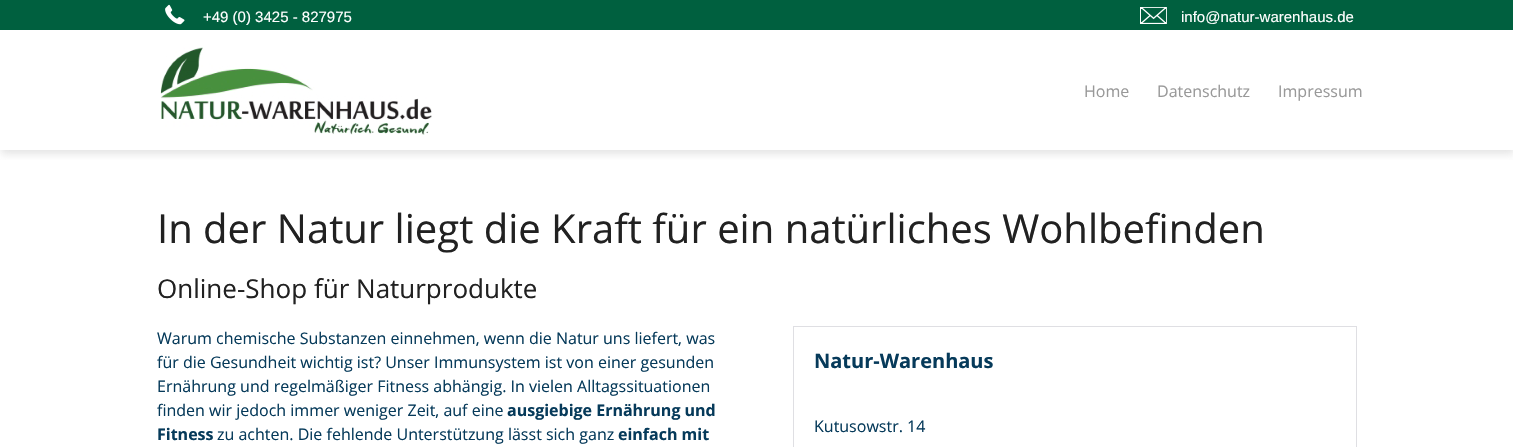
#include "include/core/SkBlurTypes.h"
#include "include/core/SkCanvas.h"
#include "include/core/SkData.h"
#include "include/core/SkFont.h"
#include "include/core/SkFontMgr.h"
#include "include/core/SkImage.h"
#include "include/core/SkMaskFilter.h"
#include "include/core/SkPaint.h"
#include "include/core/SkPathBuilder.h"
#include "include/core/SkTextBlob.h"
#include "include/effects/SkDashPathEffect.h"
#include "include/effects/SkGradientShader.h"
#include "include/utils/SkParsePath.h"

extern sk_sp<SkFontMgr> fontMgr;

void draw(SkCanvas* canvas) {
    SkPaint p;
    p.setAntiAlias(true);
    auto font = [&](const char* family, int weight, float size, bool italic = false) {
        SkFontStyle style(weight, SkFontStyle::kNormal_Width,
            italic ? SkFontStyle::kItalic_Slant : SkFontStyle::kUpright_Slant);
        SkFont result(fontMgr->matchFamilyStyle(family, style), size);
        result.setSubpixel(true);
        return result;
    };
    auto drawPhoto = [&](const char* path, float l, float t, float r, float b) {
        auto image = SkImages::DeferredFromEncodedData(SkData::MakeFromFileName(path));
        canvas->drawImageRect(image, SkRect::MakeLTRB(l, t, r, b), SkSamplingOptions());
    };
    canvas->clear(0xFFFFFFFF);
    canvas->save();
    canvas->clipRect(SkRect::MakeLTRB(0, 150, 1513, 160));
    p.setColor(0x4DA3A3A3);
    p.setMaskFilter(SkMaskFilter::MakeBlur(kNormal_SkBlurStyle, 4));
    canvas->drawRect(SkRect::MakeLTRB(1, 4, 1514, 154), p);
    p.setMaskFilter(nullptr);
    canvas->restore();
    p.setColor(0xFF00603F);
    canvas->drawRect(SkRect::MakeLTRB(0, 0, 1513, 30), p);
    drawPhoto("media/1.png", 165, 4, 185, 25);
    auto font1 = font("Liberation Sans", 400, 15);
    p.setColor(0xFFFFFFFF);
    canvas->drawString("+49 (0) 3425 - 827975", 203, 22, font1, p);
    drawPhoto("media/2.png", 1140, 7, 1167, 24);
    canvas->drawString("info@natur-warenhaus.de", 1181, 22, font1, p);
    drawPhoto("media/3.png", 160, 47, 432, 135);
    auto font2 = font("Open Sans", 400, 16);
    p.setColor(0xFF999999);
    {
        const struct { const char* s; float x, y; } items[] = {
            {"Home", 1084, 97},
            {"Datenschutz", 1157, 97},
            {"Impressum", 1278, 97},
        };
        for (auto [s, x, y] : items) {
            canvas->drawString(s, x, y, font2, p);
        }
    }
    auto font3 = font("Open Sans", 400, 40);
    p.setColor(0xFF212121);
    canvas->drawString("In der Natur liegt die Kraft für ein natürliches Wohlbefinden", 157, 243, font3, p);
    auto font4 = font("Open Sans", 400, 26);
    canvas->drawString("Online-Shop für Naturprodukte", 157, 298, font4, p);
    p.setColor(0xFF063A5A);
    {
        const struct { const char* s; float x, y; } items[] = {
            {"Warum chemische Substanzen einnehmen, wenn die Natur uns liefert, was", 157, 344},
            {"für die Gesundheit wichtig ist? Unser Immunsystem ist von einer gesunden", 157, 368},
            {"Ernährung und regelmäßiger Fitness abhängig. In vielen Alltagssituationen", 157, 392},
            {"finden wir jedoch immer weniger Zeit, auf eine", 157, 416},
        };
        for (auto [s, x, y] : items) {
            canvas->drawString(s, x, y, font2, p);
        }
    }
    auto font5 = font("Open Sans", 700, 16);
    canvas->drawString("ausgiebige Ernährung und", 507, 416, font5, p);
    canvas->drawString("Fitness", 157, 440, font5, p);
    canvas->drawString("zu achten. Die fehlende Unterstützung lässt sich ganz", 217, 440, font2, p);
    canvas->drawString("einfach mit", 618, 440, font5, p);
    p.setStyle(SkPaint::kStroke_Style);
    p.setStrokeWidth(1);
    p.setColor(0xFFDFDFE3);
    canvas->drawRect(SkRect::MakeLTRB(793.5f, 326.5f, 1356.5f, 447.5f), p);
    auto font6 = font("Open Sans", 700, 20);
    p.setStyle(SkPaint::kFill_Style);
    p.setColor(0xFF063A5A);
    canvas->drawString("Natur-Warenhaus", 814, 368, font6, p);
    canvas->drawString("Kutusowstr. 14", 814, 432, font2, p);
}
